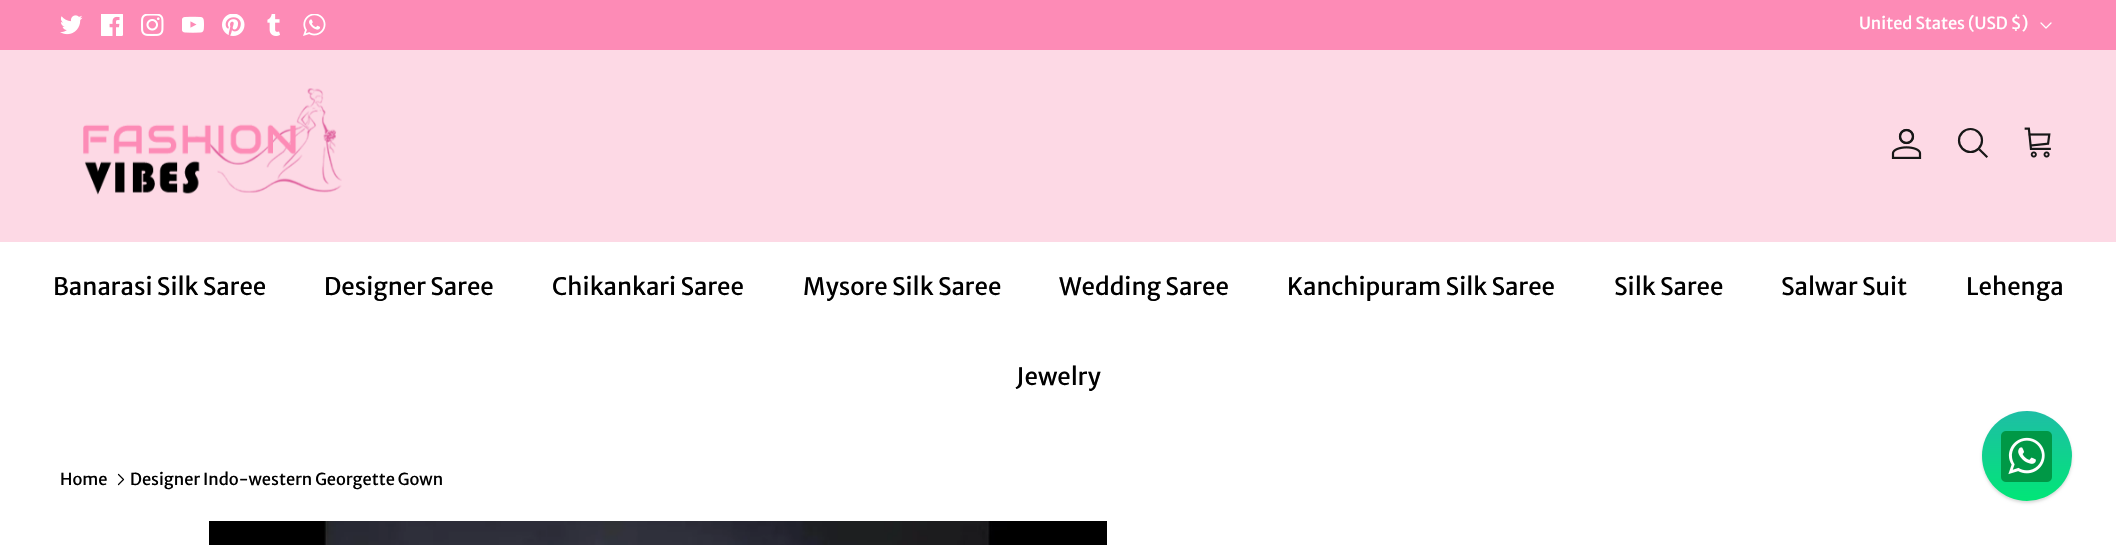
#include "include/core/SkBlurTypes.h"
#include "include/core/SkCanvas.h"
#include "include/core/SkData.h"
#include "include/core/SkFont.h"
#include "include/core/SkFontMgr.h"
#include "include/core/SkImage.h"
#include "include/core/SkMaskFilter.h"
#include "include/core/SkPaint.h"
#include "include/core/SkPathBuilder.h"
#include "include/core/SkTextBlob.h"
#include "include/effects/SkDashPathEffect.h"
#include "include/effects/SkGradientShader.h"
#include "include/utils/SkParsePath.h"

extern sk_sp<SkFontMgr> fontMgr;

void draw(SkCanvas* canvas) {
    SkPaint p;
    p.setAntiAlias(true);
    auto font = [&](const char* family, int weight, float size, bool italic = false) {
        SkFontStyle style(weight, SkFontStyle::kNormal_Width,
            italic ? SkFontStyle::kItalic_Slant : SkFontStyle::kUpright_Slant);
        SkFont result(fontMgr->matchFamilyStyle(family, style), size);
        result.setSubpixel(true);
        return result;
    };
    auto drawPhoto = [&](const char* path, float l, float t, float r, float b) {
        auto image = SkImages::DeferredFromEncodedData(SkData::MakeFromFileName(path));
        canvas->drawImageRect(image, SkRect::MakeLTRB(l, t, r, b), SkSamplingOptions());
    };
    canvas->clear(0xFFFFFFFF);
    p.setColor(0xFFFD8BB6);
    canvas->drawRect(SkRect::MakeLTRB(0, 0, 2116, 50), p);
    drawPhoto("media/1.png", 60, 15, 83, 35);
    drawPhoto("media/2.png", 101, 14, 123, 36);
    drawPhoto("media/3.png", 141, 14, 164, 36);
    drawPhoto("media/4.png", 182, 16, 204, 33);
    drawPhoto("media/5.png", 222, 14, 245, 36);
    drawPhoto("media/6.png", 267, 14, 280, 36);
    drawPhoto("media/7.png", 303, 14, 326, 36);
    auto font1 = font("Merriweather Sans", 400, 16.5f);
    p.setColor(0xFFFFFFFF);
    canvas->drawString("United States (USD $)", 1859, 29, font1, p);
    p.setStyle(SkPaint::kStroke_Style);
    p.setStrokeWidth(1.3f);
    p.setStrokeCap(SkPaint::kRound_Cap);
    p.setStrokeJoin(SkPaint::kRound_Join);
    canvas->drawPath(SkPathBuilder().moveTo(2041, 23).lineTo(2046, 28).lineTo(2051, 23).detach(), p);
    p.setStyle(SkPaint::kFill_Style);
    p.setColor(0xFFFDD9E5);
    canvas->drawRect(SkRect::MakeLTRB(0, 50, 2116, 242), p);
    drawPhoto("media/8.png", 83, 88, 342, 195);
    drawPhoto("media/9.png", 1891, 128, 1922, 159);
    p.setStyle(SkPaint::kStroke_Style);
    p.setStrokeWidth(2.2f);
    p.setStrokeCap(SkPaint::kButt_Cap);
    p.setStrokeJoin(SkPaint::kMiter_Join);
    p.setColor(0xFF171717);
    canvas->drawCircle(1970.5f, 140.5f, 11.5f, p);
    p.setStrokeCap(SkPaint::kSquare_Cap);
    canvas->drawPath(SkPathBuilder().moveTo(1980, 150).lineTo(1986.5f, 156.5f).detach(), p);
    drawPhoto("media/10.png", 2024, 127, 2051, 158);
    auto font2 = font("Merriweather Sans", 400, 24);
    p.setStyle(SkPaint::kFill_Style);
    p.setColor(0xFF000000);
    {
        const struct { const char* s; float x, y; } items[] = {
            {"Banarasi Silk Saree", 53, 295},
            {"Designer Saree", 324, 295},
            {"Chikankari Saree", 552, 295},
            {"Mysore Silk Saree", 803, 295},
            {"Wedding Saree", 1059, 295},
            {"Kanchipuram Silk Saree", 1287, 295},
            {"Silk Saree", 1614, 295},
            {"Salwar Suit", 1781, 295},
            {"Lehenga", 1966, 295},
            {"Jewelry", 1016, 385},
        };
        for (auto [s, x, y] : items) {
            canvas->drawString(s, x, y, font2, p);
        }
    }
    canvas->drawString("Home", 60, 485, font1, p);
    p.setStyle(SkPaint::kStroke_Style);
    p.setStrokeWidth(1.2f);
    p.setStrokeCap(SkPaint::kRound_Cap);
    p.setStrokeJoin(SkPaint::kRound_Join);
    canvas->drawPath(SkPathBuilder().moveTo(118.5f, 484.5f).lineTo(123.5f, 479.5f).lineTo(118.5f, 474.5f).detach(), p);
    p.setStyle(SkPaint::kFill_Style);
    canvas->drawString("Designer Indo-western Georgette Gown", 130, 485, font1, p);
    drawPhoto("media/11.png", 209, 521, 1107, 545);
    p.setColor(0x26000000);
    p.setMaskFilter(SkMaskFilter::MakeBlur(kNormal_SkBlurStyle, 1.5f));
    canvas->drawRoundRect(SkRect::MakeLTRB(1982, 413, 2072, 503), 45, 45, p);
    p.setMaskFilter(nullptr);
    {
        const SkColor colors[] = {0xFF1EBEA5, 0xFF01E677};
        const float stops[] = {0, 1};
        const SkPoint ends[] = {{2027, 411}, {2027, 501}};
        p.setShader(SkGradientShader::MakeLinear(ends, colors, stops, 2, SkTileMode::kClamp));
        p.setAlpha(255);
    }
    canvas->drawCircle(2027, 456, 45, p);
    drawPhoto("media/12.png", 2001, 431, 2052, 482);
}
